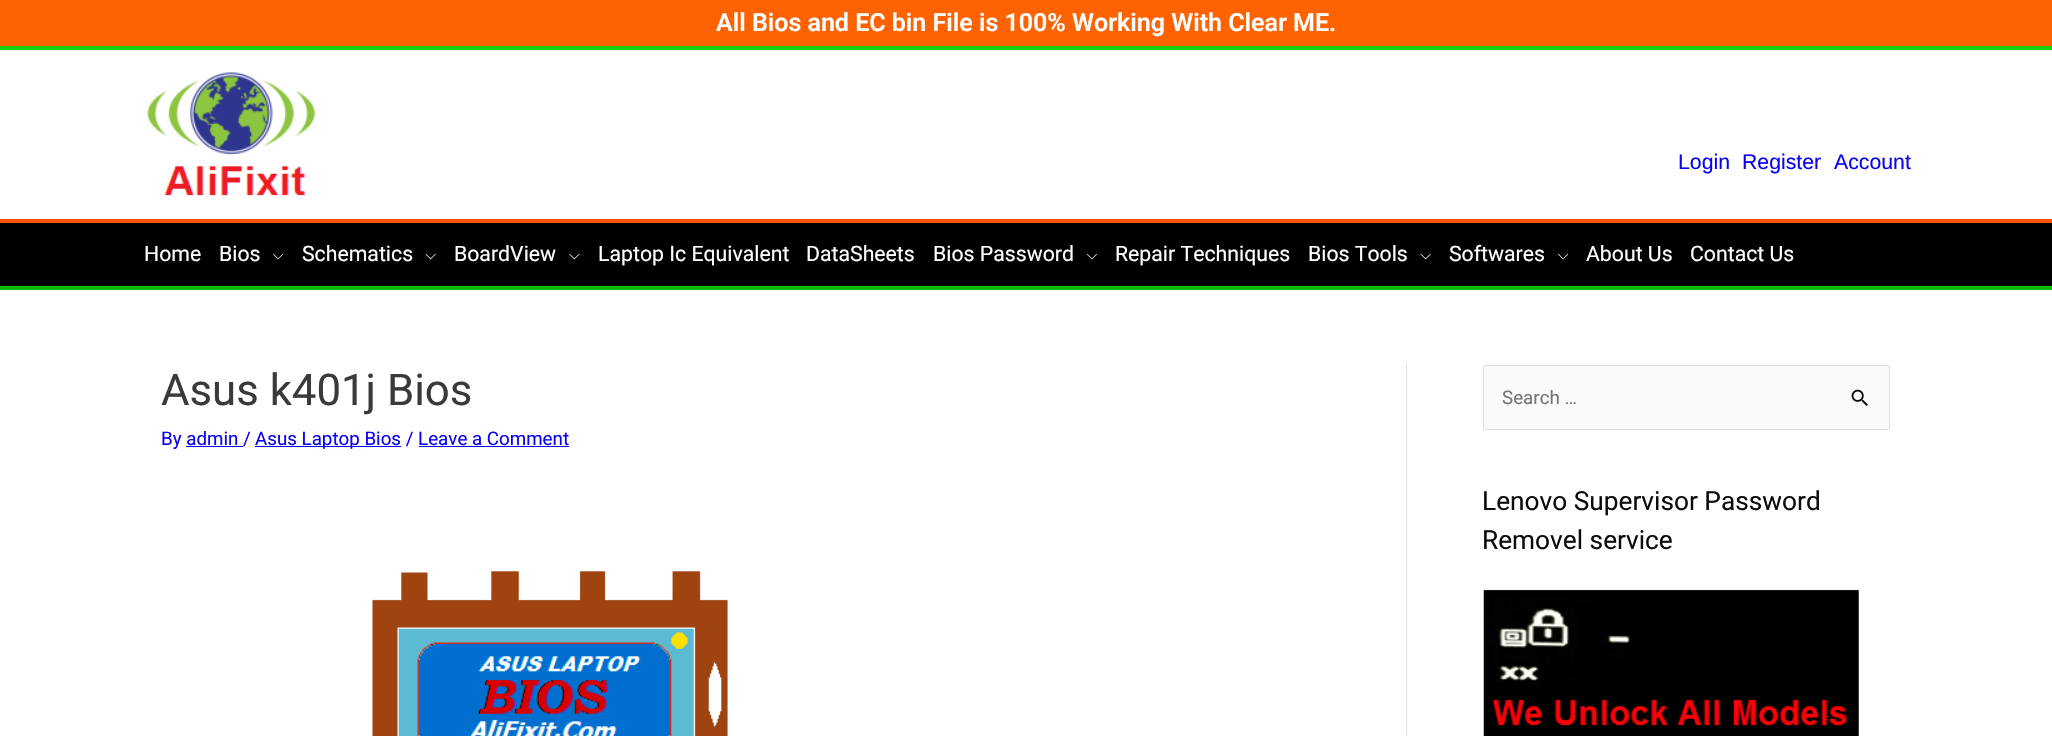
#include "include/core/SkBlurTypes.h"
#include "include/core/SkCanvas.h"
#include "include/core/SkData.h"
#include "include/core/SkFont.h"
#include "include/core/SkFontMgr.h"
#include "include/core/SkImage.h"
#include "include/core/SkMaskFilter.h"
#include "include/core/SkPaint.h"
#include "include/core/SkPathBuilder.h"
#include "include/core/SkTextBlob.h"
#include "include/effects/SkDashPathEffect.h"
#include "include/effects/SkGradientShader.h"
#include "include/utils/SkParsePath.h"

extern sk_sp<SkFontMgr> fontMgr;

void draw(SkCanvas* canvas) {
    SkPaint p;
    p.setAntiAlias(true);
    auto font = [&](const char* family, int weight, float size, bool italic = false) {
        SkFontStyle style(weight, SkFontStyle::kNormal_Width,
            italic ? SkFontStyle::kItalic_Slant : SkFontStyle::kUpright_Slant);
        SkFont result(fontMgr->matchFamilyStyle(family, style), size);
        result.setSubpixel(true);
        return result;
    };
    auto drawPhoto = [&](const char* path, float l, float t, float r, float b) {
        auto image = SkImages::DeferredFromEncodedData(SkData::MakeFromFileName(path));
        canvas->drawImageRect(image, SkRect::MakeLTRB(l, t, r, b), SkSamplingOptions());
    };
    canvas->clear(0xFFFFFFFF);
    p.setColor(0xFFFF6200);
    canvas->drawRect(SkRect::MakeLTRB(0, 0, 2052, 46), p);
    p.setColor(0xFF18D00A);
    canvas->drawRect(SkRect::MakeLTRB(0, 46, 2052, 50), p);
    auto font1 = font("Roboto", 600, 25);
    p.setColor(0xFFFFFFFF);
    canvas->drawString("All Bios and EC bin File is 100% Working With Clear ME.", 716, 31, font1, p);
    p.setColor(0xFFFC5400);
    canvas->drawRect(SkRect::MakeLTRB(0, 219, 2052, 223), p);
    drawPhoto("media/1.png", 147, 72, 316, 196);
    auto font2 = font("Liberation Sans", 400, 21.25f);
    p.setColor(0xFF0A02F2);
    {
        const struct { const char* s; float x, y; } items[] = {
            {"Login", 1678, 169},
            {"Register", 1742, 169},
            {"Account", 1834, 169},
        };
        for (auto [s, x, y] : items) {
            canvas->drawString(s, x, y, font2, p);
        }
    }
    p.setColor(0xFF000000);
    canvas->drawRect(SkRect::MakeLTRB(0, 223, 2052, 286), p);
    p.setColor(0xFF08B905);
    canvas->drawRect(SkRect::MakeLTRB(0, 286, 2052, 290), p);
    auto font3 = font("Roboto", 400, 21.25f);
    p.setColor(0xFFFFFFFF);
    canvas->drawString("Home", 144, 261, font3, p);
    canvas->drawString("Bios", 219, 261, font3, p);
    drawPhoto("media/2.png", 273, 253, 284, 260);
    canvas->drawString("Schematics", 302, 261, font3, p);
    drawPhoto("media/3.png", 425, 253, 436, 260);
    canvas->drawString("BoardView", 454, 261, font3, p);
    drawPhoto("media/4.png", 569, 253, 580, 260);
    {
        const struct { const char* s; float x, y; } items[] = {
            {"Laptop Ic Equivalent", 598, 261},
            {"DataSheets", 806, 261},
            {"Bios Password", 933, 261},
        };
        for (auto [s, x, y] : items) {
            canvas->drawString(s, x, y, font3, p);
        }
    }
    drawPhoto("media/5.png", 1086, 253, 1097, 260);
    canvas->drawString("Repair Techniques", 1115, 261, font3, p);
    canvas->drawString("Bios Tools", 1308, 261, font3, p);
    drawPhoto("media/3.png", 1420, 253, 1431, 260);
    canvas->drawString("Softwares", 1449, 261, font3, p);
    drawPhoto("media/2.png", 1558, 253, 1569, 260);
    canvas->drawString("About Us", 1586, 261, font3, p);
    canvas->drawString("Contact Us", 1690, 261, font3, p);
    p.setColor(0xFFDDDDDD);
    canvas->drawRect(SkRect::MakeLTRB(1406, 365, 1407, 736), p);
    auto font4 = font("Roboto", 400, 43.75f);
    p.setColor(0xFF3A3A3A);
    canvas->drawString("Asus k401j Bios", 161, 405, font4, p);
    auto font5 = font("Roboto", 400, 18.75f);
    p.setColor(0xFF0A02F2);
    canvas->drawString("By admin", 161, 445, font5, p);
    canvas->drawRect(SkRect::MakeLTRB(186, 446, 243, 447), p);
    canvas->drawString("/", 243, 445, font5, p);
    canvas->drawRect(SkRect::MakeLTRB(255, 446, 401, 447), p);
    canvas->drawString("Asus Laptop Bios / Leave a Comment", 255, 445, font5, p);
    canvas->drawRect(SkRect::MakeLTRB(419, 446, 569, 447), p);
    drawPhoto("media/6.png", 372, 571, 728, 736);
    p.setColor(0xFFFAFAFA);
    canvas->drawRoundRect(SkRect::MakeLTRB(1483.5f, 365.5f, 1889.5f, 429.5f), 2, 2, p);
    p.setStyle(SkPaint::kStroke_Style);
    p.setStrokeWidth(1);
    p.setColor(0xFFDDDDDD);
    canvas->drawRoundRect(SkRect::MakeLTRB(1483.5f, 365.5f, 1889.5f, 429.5f), 2, 2, p);
    p.setStyle(SkPaint::kFill_Style);
    p.setColor(0xFF757575);
    canvas->drawString("Search …", 1502, 404, font5, p);
    drawPhoto("media/7.png", 1851, 389, 1868, 406);
    auto font6 = font("Roboto", 400, 26.25f);
    p.setColor(0xFF0C0C0C);
    canvas->drawString("Lenovo Supervisor Password", 1482, 510, font6, p);
    canvas->drawString("Removel service", 1482, 549, font6, p);
    drawPhoto("media/8.png", 1483, 589, 1859, 736);
}
